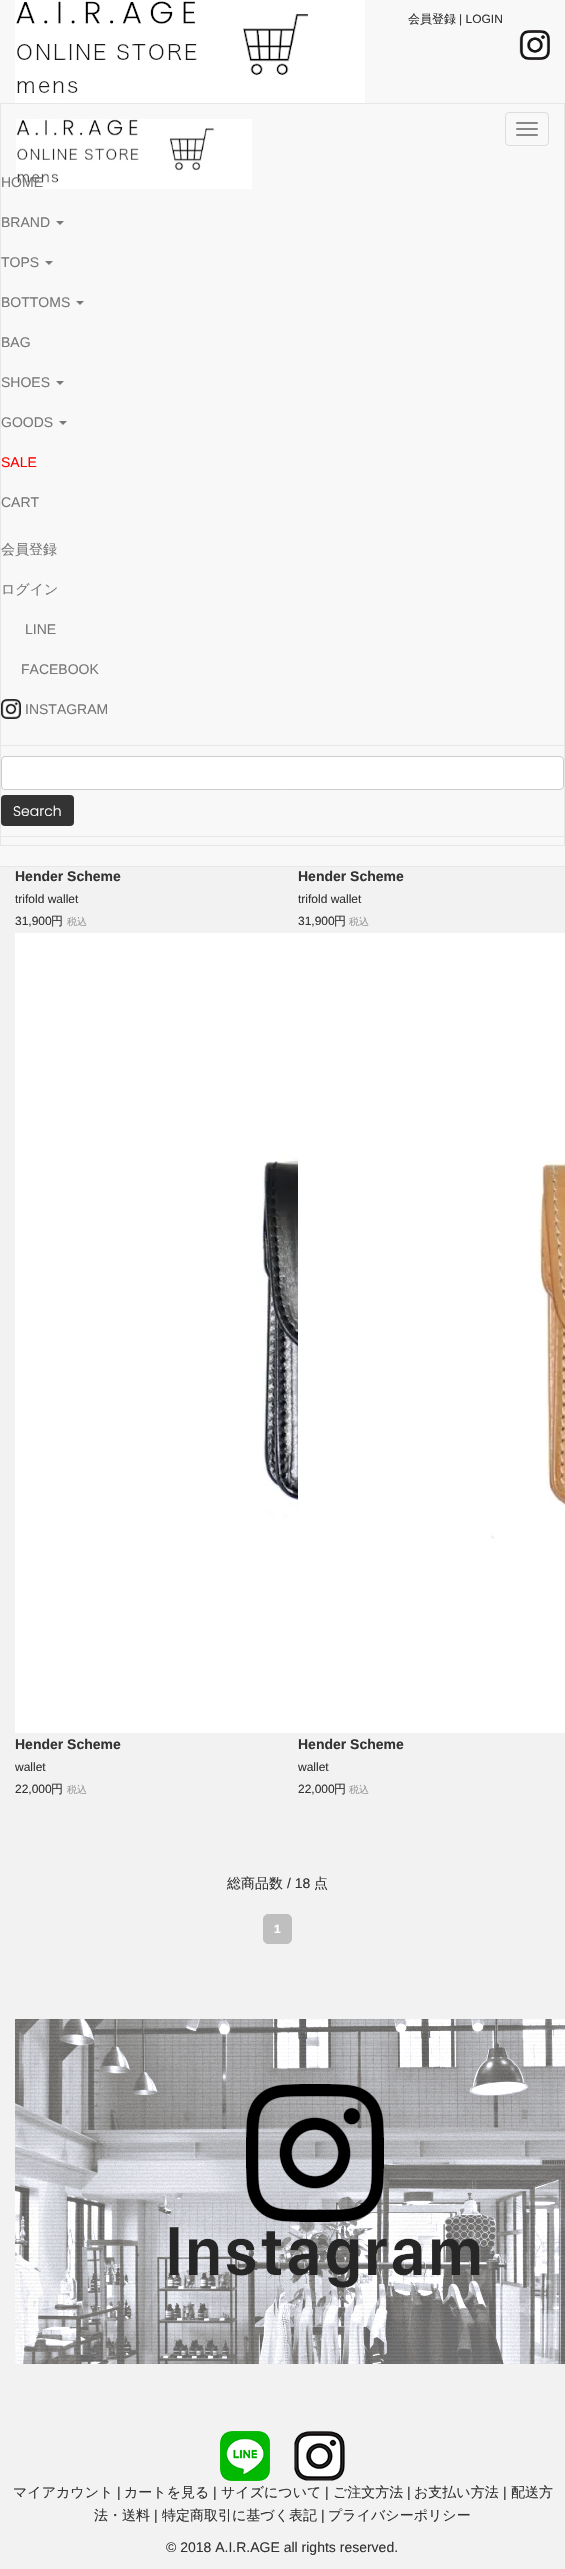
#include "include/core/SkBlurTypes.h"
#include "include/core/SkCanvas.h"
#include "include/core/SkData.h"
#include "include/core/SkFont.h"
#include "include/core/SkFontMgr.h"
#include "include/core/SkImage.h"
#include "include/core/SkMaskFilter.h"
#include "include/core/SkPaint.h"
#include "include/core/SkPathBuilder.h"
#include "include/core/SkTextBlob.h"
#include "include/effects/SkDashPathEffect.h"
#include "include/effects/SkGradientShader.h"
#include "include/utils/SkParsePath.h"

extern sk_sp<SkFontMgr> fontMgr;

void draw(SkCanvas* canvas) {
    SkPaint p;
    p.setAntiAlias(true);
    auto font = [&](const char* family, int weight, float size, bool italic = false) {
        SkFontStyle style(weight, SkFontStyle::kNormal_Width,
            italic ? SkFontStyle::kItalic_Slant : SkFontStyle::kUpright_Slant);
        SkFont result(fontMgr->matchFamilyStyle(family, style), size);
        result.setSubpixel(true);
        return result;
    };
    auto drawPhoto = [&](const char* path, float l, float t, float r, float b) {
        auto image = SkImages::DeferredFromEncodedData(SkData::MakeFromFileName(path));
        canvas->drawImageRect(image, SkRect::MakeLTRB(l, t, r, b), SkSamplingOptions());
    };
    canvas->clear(0xFFF2F2F3);
    p.setColor(0xFFF8F8F8);
    canvas->drawRect(SkRect::MakeLTRB(0, 0, 565, 866), p);
    p.setColor(0xFFE7E7E7);
    canvas->drawRect(SkRect::MakeLTRB(0, 866, 565, 867), p);
    drawPhoto("media/1.png", 15, 0, 365, 103);
    auto font1 = font("WenQuanYi Zen Hei", 500, 12);
    p.setColor(0xFF333333);
    canvas->drawString("会員登録", 408, 23, font1, p);
    auto font2 = font("Liberation Sans", 400, 12);
    canvas->drawString("| LOGIN", 459, 23, font2, p);
    drawPhoto("media/2.png", 519, 30, 550, 60);
    p.setStyle(SkPaint::kStroke_Style);
    p.setStrokeWidth(1);
    p.setColor(0xFFE7E7E7);
    canvas->drawRect(SkRect::MakeLTRB(0.5f, 103.5f, 564.5f, 845.5f), p);
    drawPhoto("media/3.png", 16, 119, 252, 189);
    p.setColor(0xFFDDDDDD);
    canvas->drawRoundRect(SkRect::MakeLTRB(505.5f, 112.5f, 548.5f, 145.5f), 3.5f, 3.5f, p);
    p.setStyle(SkPaint::kFill_Style);
    p.setColor(0xFF888888);
    canvas->drawRoundRect(SkRect::MakeLTRB(516, 122, 538, 124), 1, 1, p);
    canvas->drawRoundRect(SkRect::MakeLTRB(516, 128, 538, 130), 1, 1, p);
    canvas->drawRoundRect(SkRect::MakeLTRB(516, 134, 538, 136), 1, 1, p);
    auto font3 = font("Liberation Sans", 400, 14);
    p.setColor(0xFF777777);
    canvas->drawString("HOME", 1, 187, font3, p);
    canvas->drawString("BRAND", 1, 227, font3, p);
    canvas->drawPath(SkPathBuilder().moveTo(56, 221).lineTo(64, 221).lineTo(60, 225).close().detach(), p);
    canvas->drawString("TOPS", 1, 267, font3, p);
    canvas->drawPath(SkPathBuilder().moveTo(45, 261).lineTo(53, 261).lineTo(49, 265).close().detach(), p);
    canvas->drawString("BOTTOMS", 1, 307, font3, p);
    canvas->drawPath(SkPathBuilder().moveTo(76, 301).lineTo(84, 301).lineTo(80, 305).close().detach(), p);
    canvas->drawString("BAG", 1, 347, font3, p);
    canvas->drawString("SHOES", 1, 387, font3, p);
    canvas->drawPath(SkPathBuilder().moveTo(56, 381).lineTo(64, 381).lineTo(60, 385).close().detach(), p);
    canvas->drawString("GOODS", 1, 427, font3, p);
    canvas->drawPath(SkPathBuilder().moveTo(59, 421).lineTo(67, 421).lineTo(63, 425).close().detach(), p);
    p.setColor(0xFFFF0000);
    canvas->drawString("SALE", 1, 467, font3, p);
    p.setColor(0xFF777777);
    canvas->drawString("CART", 1, 507, font3, p);
    auto font4 = font("WenQuanYi Zen Hei", 500, 14);
    canvas->drawString("会員登録", 1, 554, font4, p);
    canvas->drawString("ログイン", 1, 594, font4, p);
    canvas->drawString("LINE", 25, 634, font3, p);
    canvas->drawString("FACEBOOK", 21, 674, font3, p);
    drawPhoto("media/4.png", 1, 699, 21, 719);
    canvas->drawString("INSTAGRAM", 25, 714, font3, p);
    p.setColor(0xFFE7E7E7);
    canvas->drawRect(SkRect::MakeLTRB(0, 745, 565, 746), p);
    canvas->drawRect(SkRect::MakeLTRB(0, 836, 565, 837), p);
    p.setColor(0xFFFFFFFF);
    canvas->drawRoundRect(SkRect::MakeLTRB(1.5f, 756.5f, 563.5f, 789.5f), 3.5f, 3.5f, p);
    p.setStyle(SkPaint::kStroke_Style);
    p.setColor(0xFFCCCCCC);
    canvas->drawRoundRect(SkRect::MakeLTRB(1.5f, 756.5f, 563.5f, 789.5f), 3.5f, 3.5f, p);
    p.setStyle(SkPaint::kFill_Style);
    p.setColor(0xFF333333);
    canvas->drawRoundRect(SkRect::MakeLTRB(1, 795, 74, 826), 4, 4, p);
    auto font5 = font("Poppins", 300, 14);
    p.setColor(0xFFFFFFFF);
    canvas->drawString("Search", 13, 816, font5, p);
    auto font6 = font("Liberation Sans", 700, 14);
    p.setColor(0xFF333333);
    canvas->drawString("Hender Scheme", 15, 881, font6, p);
    canvas->drawString("trifold wallet", 15, 903, font2, p);
    canvas->drawString("31,900", 15, 925, font2, p);
    canvas->drawString("円", 51, 925, font1, p);
    auto font7 = font("WenQuanYi Zen Hei", 500, 10);
    p.setColor(0xFF999999);
    canvas->drawString("税込", 67, 925, font7, p);
    p.setColor(0xFF333333);
    canvas->drawString("Hender Scheme", 298, 881, font6, p);
    canvas->drawString("trifold wallet", 298, 903, font2, p);
    canvas->drawString("31,900", 298, 925, font2, p);
    canvas->drawString("円", 334, 925, font1, p);
    p.setColor(0xFF999999);
    canvas->drawString("税込", 349, 925, font7, p);
    drawPhoto("media/5.png", 15, 933, 565, 1733);
    p.setColor(0xFF333333);
    canvas->drawString("Hender Scheme", 15, 1749, font6, p);
    canvas->drawString("wallet", 15, 1771, font2, p);
    canvas->drawString("22,000", 15, 1793, font2, p);
    canvas->drawString("円", 51, 1793, font1, p);
    p.setColor(0xFF999999);
    canvas->drawString("税込", 67, 1793, font7, p);
    drawPhoto("media/6.png", 298, 1153, 565, 1539);
    p.setColor(0xFF333333);
    canvas->drawString("Hender Scheme", 298, 1749, font6, p);
    canvas->drawString("wallet", 298, 1771, font2, p);
    canvas->drawString("22,000", 298, 1793, font2, p);
    canvas->drawString("円", 334, 1793, font1, p);
    p.setColor(0xFF999999);
    canvas->drawString("税込", 349, 1793, font7, p);
    p.setColor(0xFF333333);
    canvas->drawString("総商品数", 227, 1888, font4, p);
    canvas->drawString("/ 18", 287, 1888, font3, p);
    canvas->drawString("点", 314, 1888, font4, p);
    p.setColor(0xFFBFBFBF);
    canvas->drawRoundRect(SkRect::MakeLTRB(263.5f, 1914.5f, 291.5f, 1943.5f), 4.5f, 4.5f, p);
    p.setStyle(SkPaint::kStroke_Style);
    canvas->drawRoundRect(SkRect::MakeLTRB(263.5f, 1914.5f, 291.5f, 1943.5f), 4.5f, 4.5f, p);
    auto font8 = font("Liberation Sans", 700, 12);
    p.setStyle(SkPaint::kFill_Style);
    p.setColor(0xFFFFFFFF);
    canvas->drawString("1", 274, 1933, font8, p);
    drawPhoto("media/7.png", 15, 2019, 565, 2364);
    drawPhoto("media/8.png", 220, 2431, 270, 2481);
    drawPhoto("media/9.png", 294, 2431, 345, 2481);
    p.setColor(0xFF333333);
    canvas->drawString("マイアカウント", 13, 2497, font4, p);
    canvas->drawString("|", 117, 2497, font3, p);
    canvas->drawString("カートを見る", 124, 2497, font4, p);
    canvas->drawString("|", 213, 2497, font3, p);
    canvas->drawString("サイズについて", 221, 2497, font4, p);
    canvas->drawString("|", 325, 2497, font3, p);
    canvas->drawString("ご注文方法", 333, 2497, font4, p);
    canvas->drawString("|", 407, 2497, font3, p);
    canvas->drawString("お支払い方法", 414, 2497, font4, p);
    canvas->drawString("|", 503, 2497, font3, p);
    canvas->drawString("配送方", 511, 2497, font4, p);
    canvas->drawString("法・送料", 94, 2520, font4, p);
    canvas->drawString("|", 154, 2520, font3, p);
    canvas->drawString("特定商取引に基づく表記", 162, 2520, font4, p);
    canvas->drawString("|", 321, 2520, font3, p);
    canvas->drawString("プライバシーポリシー", 328, 2520, font4, p);
    canvas->drawString("© 2018 A.I.R.AGE all rights reserved.", 166, 2552, font3, p);
}
